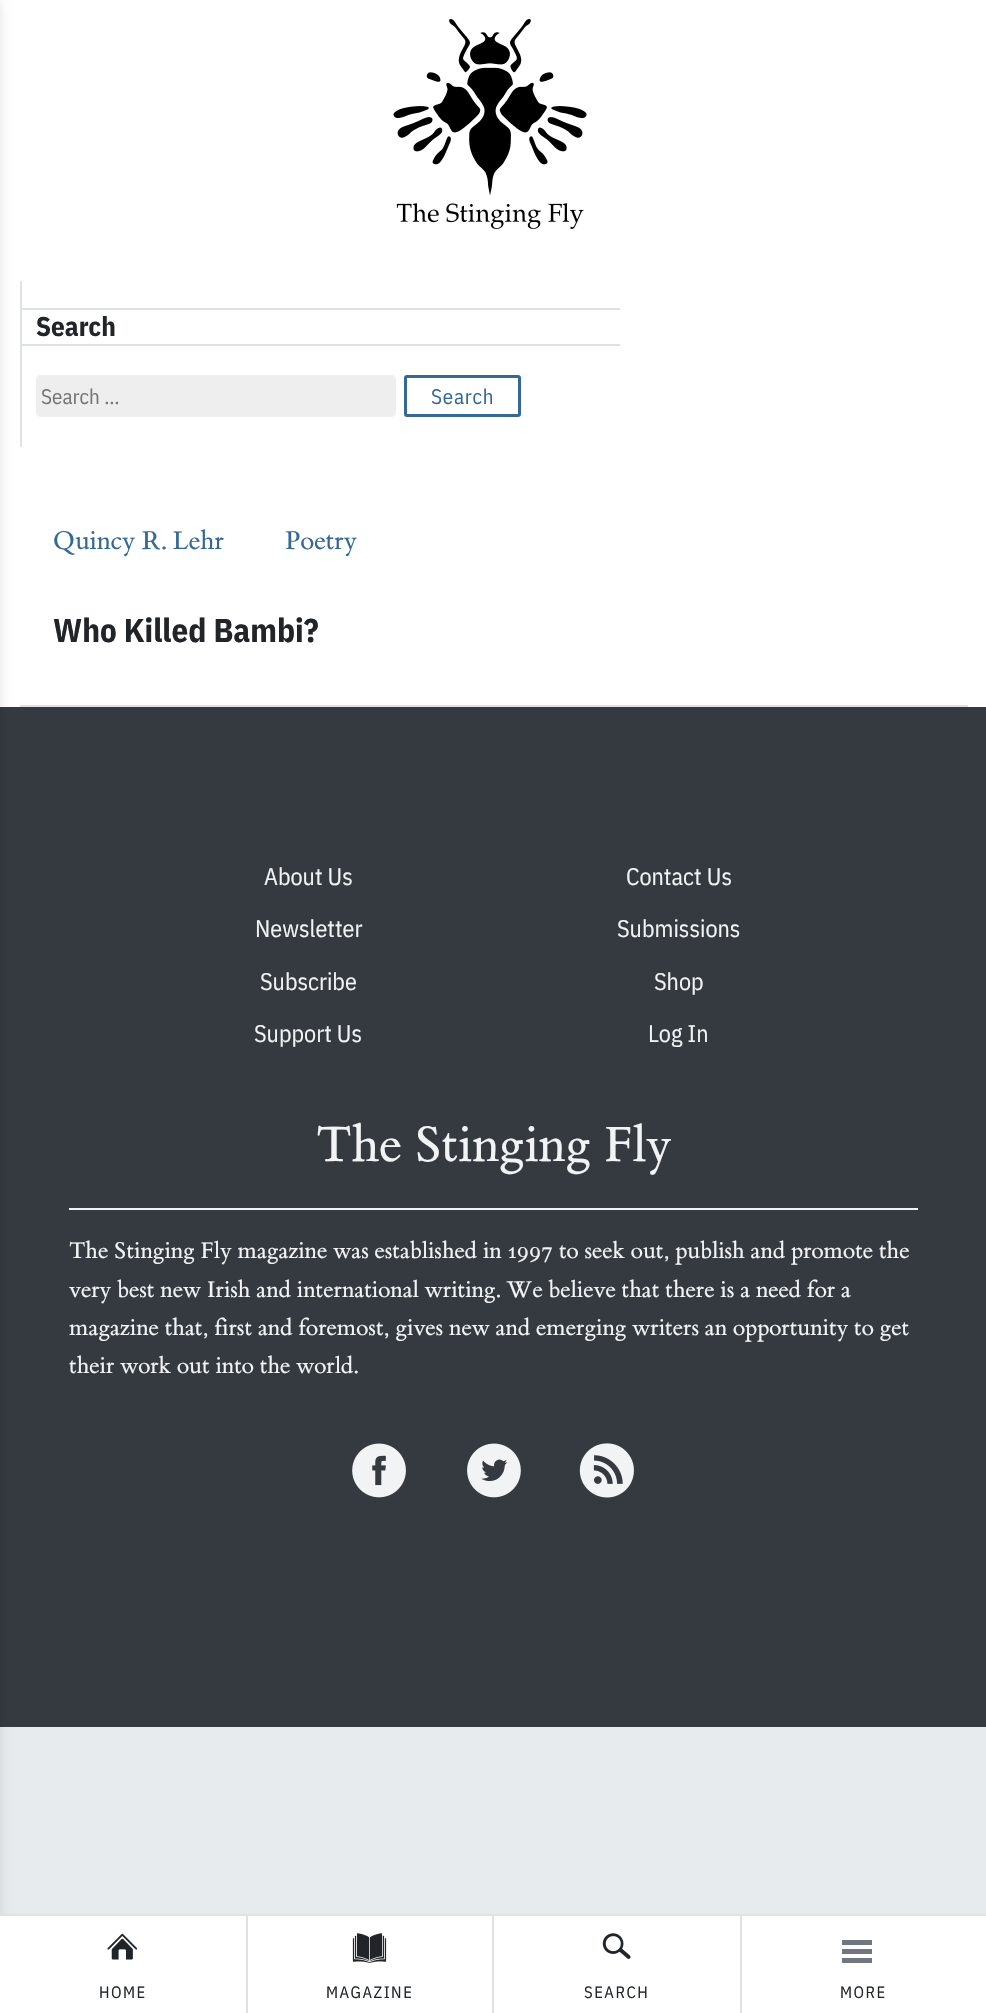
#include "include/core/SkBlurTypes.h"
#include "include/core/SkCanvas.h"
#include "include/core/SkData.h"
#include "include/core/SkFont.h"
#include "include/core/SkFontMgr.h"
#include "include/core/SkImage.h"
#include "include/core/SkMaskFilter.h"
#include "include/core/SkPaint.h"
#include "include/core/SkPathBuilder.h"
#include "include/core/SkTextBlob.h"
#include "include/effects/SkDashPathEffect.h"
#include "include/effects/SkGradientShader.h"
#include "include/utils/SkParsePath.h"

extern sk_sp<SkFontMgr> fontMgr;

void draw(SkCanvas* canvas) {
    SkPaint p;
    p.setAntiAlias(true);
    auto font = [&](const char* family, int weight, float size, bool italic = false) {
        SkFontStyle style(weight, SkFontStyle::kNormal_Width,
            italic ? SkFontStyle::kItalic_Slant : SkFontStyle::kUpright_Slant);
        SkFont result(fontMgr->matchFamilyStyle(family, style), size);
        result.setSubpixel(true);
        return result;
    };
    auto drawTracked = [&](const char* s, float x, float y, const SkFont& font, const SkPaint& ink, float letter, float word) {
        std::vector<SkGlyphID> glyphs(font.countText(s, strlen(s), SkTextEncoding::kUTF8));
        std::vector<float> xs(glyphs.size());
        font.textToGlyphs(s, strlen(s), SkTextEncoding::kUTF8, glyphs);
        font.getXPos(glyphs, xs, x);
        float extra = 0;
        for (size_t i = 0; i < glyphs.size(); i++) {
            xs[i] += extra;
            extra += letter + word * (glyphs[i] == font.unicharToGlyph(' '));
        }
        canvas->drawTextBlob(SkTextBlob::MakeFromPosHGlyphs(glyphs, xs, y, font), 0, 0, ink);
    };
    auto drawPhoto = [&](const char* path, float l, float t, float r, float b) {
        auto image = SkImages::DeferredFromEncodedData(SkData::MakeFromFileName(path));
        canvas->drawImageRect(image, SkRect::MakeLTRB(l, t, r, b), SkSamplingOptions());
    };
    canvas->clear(0xFFE8EBEE);
    {
        const struct { float l, t, r, b; SkColor color; } items[] = {
            {0, 0, 986, 707, 0xFFFFFFFF},
            {20, 281, 22, 447, 0xFFDEE2E6},
            {21, 308, 620, 310, 0xFFDEE2E6},
            {21, 344, 620, 346, 0xFFDEE2E6},
        };
        for (auto [l, t, r, b, color] : items) {
            p.setColor(color);
            canvas->drawRect(SkRect::MakeLTRB(l, t, r, b), p);
        }
    }
    auto font1 = font("IBM Plex Sans Condensed", 700, 27);
    p.setColor(0xFF212529);
    canvas->drawString("Search", 36, 336, font1, p);
    p.setColor(0xFFEEEEEE);
    canvas->drawRoundRect(SkRect::MakeLTRB(36, 375, 396, 417), 5, 5, p);
    auto font2 = font("IBM Plex Sans Condensed", 400, 21);
    p.setColor(0xFF757575);
    canvas->drawString("Search …", 41, 404, font2, p);
    p.setStyle(SkPaint::kStroke_Style);
    p.setStrokeWidth(3);
    p.setColor(0xFF336897);
    canvas->drawRoundRect(SkRect::MakeLTRB(405.5f, 376.5f, 519.5f, 415.5f), 1.5f, 1.5f, p);
    p.setStyle(SkPaint::kFill_Style);
    drawTracked("Search", 431, 404, font2, p, 0.75f, 0);
    p.setColor(0xFFDEE2E6);
    canvas->drawRect(SkRect::MakeLTRB(20, 705, 968, 707), p);
    auto font3 = font("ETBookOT", 400, 27);
    p.setColor(0xFF336897);
    canvas->drawString("Quincy R. Lehr", 53, 549, font3, p);
    canvas->drawString("Poetry", 285, 549, font3, p);
    auto font4 = font("IBM Plex Sans Condensed", 700, 33);
    p.setColor(0xFF212529);
    canvas->drawString("Who Killed Bambi?", 53, 642, font4, p);
    p.setColor(0xFF343A40);
    canvas->drawRect(SkRect::MakeLTRB(0, 707, 986, 1727), p);
    auto font5 = font("IBM Plex Sans Condensed", 400, 24);
    p.setColor(0xFFF1F3F5);
    {
        const struct { const char* s; float x, y; } items[] = {
            {"About Us", 264, 885},
            {"Contact Us", 626, 885},
            {"Newsletter", 255, 937},
            {"Submissions", 617, 937},
            {"Subscribe", 260, 990},
            {"Shop", 654, 990},
            {"Support Us", 254, 1042},
            {"Log In", 648, 1042},
        };
        for (auto [s, x, y] : items) {
            canvas->drawString(s, x, y, font5, p);
        }
    }
    auto font6 = font("ETBookOT", 400, 52.5f);
    canvas->drawString("The Stinging Fly", 316, 1161, font6, p);
    canvas->drawRect(SkRect::MakeLTRB(69, 1208, 918, 1210), p);
    auto font7 = font("ETBookOT", 400, 24);
    {
        const struct { const char* s; float x, y; } items[] = {
            {"The Stinging Fly magazine was established in 1997 to seek out, publish and promote the", 69, 1258},
            {"very best new Irish and international writing. We believe that there is a need for a", 69, 1297},
            {"magazine that, first and foremost, gives new and emerging writers an opportunity to get", 69, 1335},
            {"their work out into the world.", 69, 1373},
        };
        for (auto [s, x, y] : items) {
            canvas->drawString(s, x, y, font7, p);
        }
    }
    drawPhoto("media/1.png", 352, 1443, 406, 1498);
    drawPhoto("media/2.png", 467, 1443, 521, 1498);
    drawPhoto("media/3.png", 579, 1443, 634, 1498);
    p.setColor(0x66000000);
    p.setMaskFilter(SkMaskFilter::MakeBlur(kNormal_SkBlurStyle, 9));
    canvas->drawRect(SkRect::MakeLTRB(-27, 0, -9, 2013), p);
    p.setMaskFilter(nullptr);
    drawPhoto("media/4.png", 393, 19, 587, 229);
    {
        const struct { float l, t, r, b; SkColor color; } items[] = {
            {0, 1916, 986, 2013, 0xFFFFFFFF},
            {0, 1914, 986, 1916, 0xFFDEE2E6},
            {246, 1916, 248, 2013, 0xFFDEE2E6},
        };
        for (auto [l, t, r, b, color] : items) {
            p.setColor(color);
            canvas->drawRect(SkRect::MakeLTRB(l, t, r, b), p);
        }
    }
    drawPhoto("media/5.png", 107, 1933, 138, 1960);
    auto font8 = font("IBM Plex Sans Condensed", 400, 16.5f);
    p.setColor(0xFF212529);
    drawTracked("HOME", 99, 1998, font8, p, 1.5f, 0);
    p.setColor(0xFFDEE2E6);
    canvas->drawRect(SkRect::MakeLTRB(492, 1916, 494, 2013), p);
    drawPhoto("media/6.png", 352, 1933, 387, 1963);
    p.setColor(0xFF212529);
    drawTracked("MAGAZINE", 326, 1998, font8, p, 1.5f, 0);
    p.setColor(0xFFDEE2E6);
    canvas->drawRect(SkRect::MakeLTRB(740, 1916, 742, 2013), p);
    drawPhoto("media/7.png", 602, 1933, 631, 1959);
    p.setColor(0xFF212529);
    drawTracked("SEARCH", 584, 1998, font8, p, 1.5f, 0);
    {
        const struct { float l, t, r, b; SkColor color; } items[] = {
            {842, 1949, 872, 1954, 0xFF727681},
            {842, 1940, 872, 1945, 0xFF727681},
            {842, 1958, 872, 1963, 0xFF727681},
        };
        for (auto [l, t, r, b, color] : items) {
            p.setColor(color);
            canvas->drawRect(SkRect::MakeLTRB(l, t, r, b), p);
        }
    }
    p.setColor(0xFF212529);
    drawTracked("MORE", 840, 1998, font8, p, 1.5f, 0);
}
